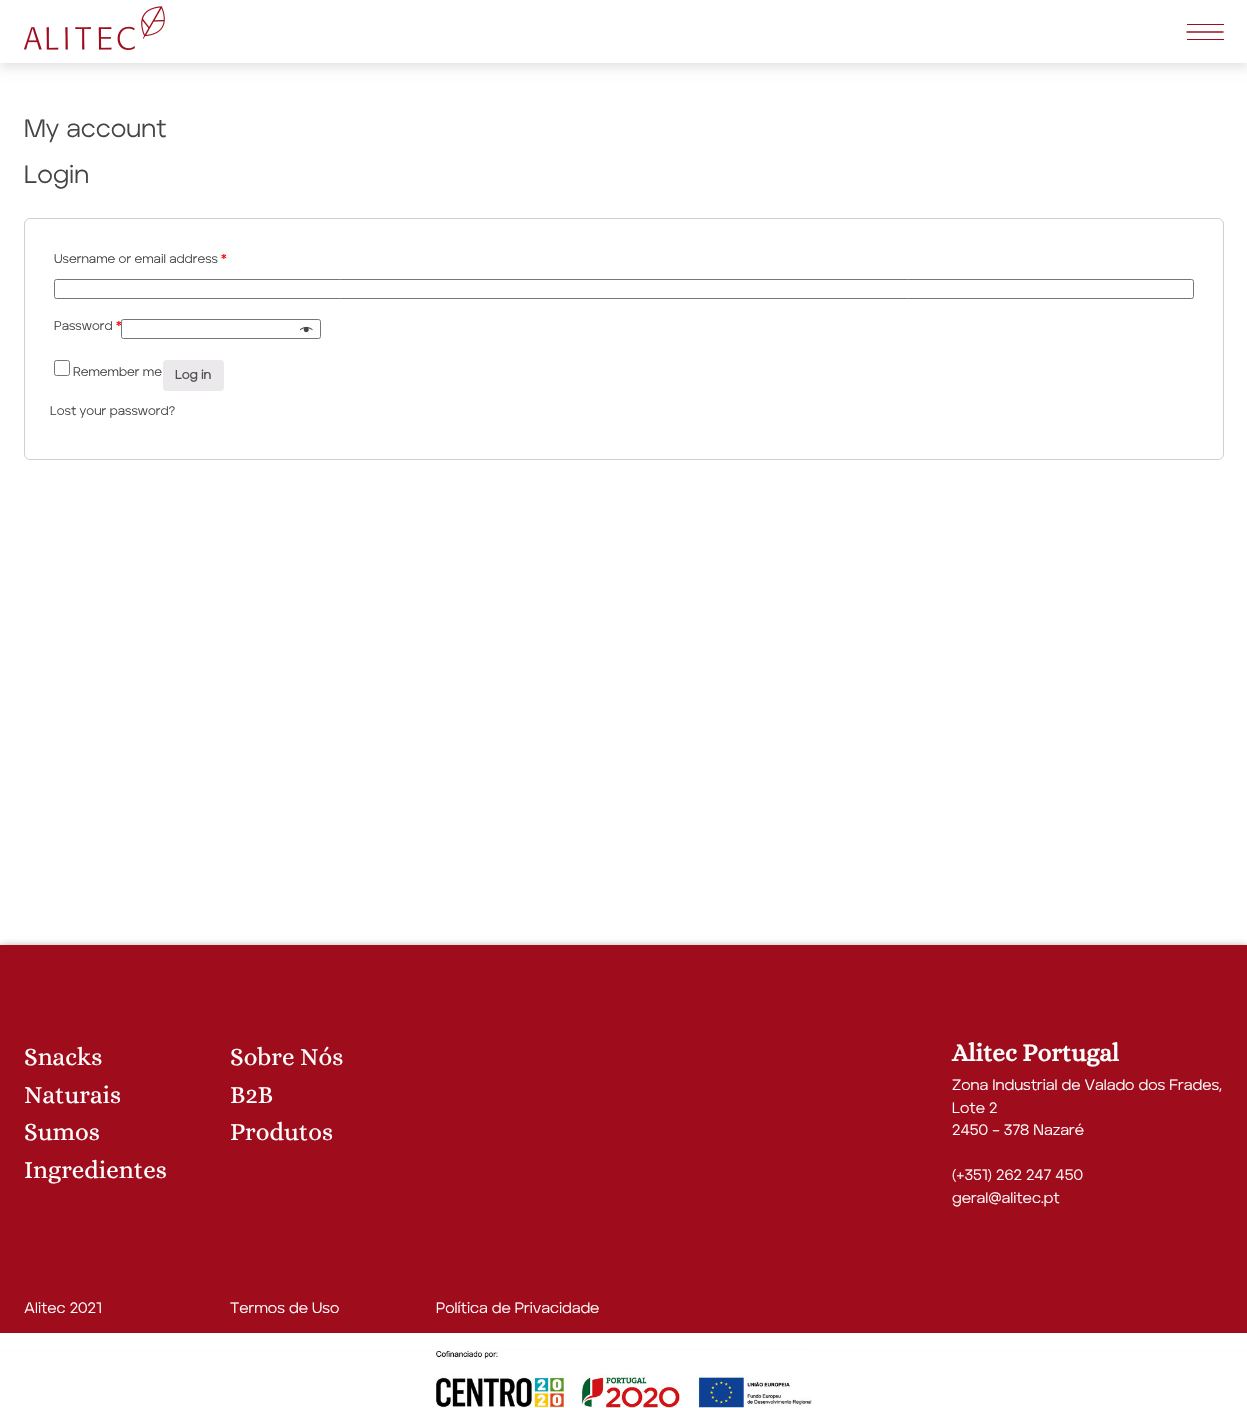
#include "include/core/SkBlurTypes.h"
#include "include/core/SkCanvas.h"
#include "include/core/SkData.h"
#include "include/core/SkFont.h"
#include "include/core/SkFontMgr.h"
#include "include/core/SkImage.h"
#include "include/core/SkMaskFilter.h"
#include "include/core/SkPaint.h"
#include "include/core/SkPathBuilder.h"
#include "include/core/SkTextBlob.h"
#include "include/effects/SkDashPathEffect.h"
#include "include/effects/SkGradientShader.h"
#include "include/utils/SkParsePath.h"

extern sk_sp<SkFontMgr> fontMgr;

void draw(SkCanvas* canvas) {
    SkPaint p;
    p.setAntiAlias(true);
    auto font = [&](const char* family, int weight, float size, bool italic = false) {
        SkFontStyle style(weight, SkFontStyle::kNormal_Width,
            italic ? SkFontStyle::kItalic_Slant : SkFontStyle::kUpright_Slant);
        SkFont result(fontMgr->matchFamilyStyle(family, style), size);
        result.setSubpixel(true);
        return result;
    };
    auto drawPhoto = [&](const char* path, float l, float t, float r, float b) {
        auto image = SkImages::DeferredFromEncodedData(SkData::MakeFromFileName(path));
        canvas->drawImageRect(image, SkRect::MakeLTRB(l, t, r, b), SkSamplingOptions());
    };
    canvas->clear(0xFFFFFFFF);
    p.setColor(0x1A000000);
    p.setMaskFilter(SkMaskFilter::MakeBlur(kNormal_SkBlurStyle, 5));
    canvas->drawRect(SkRect::MakeLTRB(0, 5, 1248, 68), p);
    p.setMaskFilter(nullptr);
    p.setColor(0xFFFFFFFF);
    canvas->drawRect(SkRect::MakeLTRB(0, 0, 1247, 63), p);
    drawPhoto("media/1.png", 24, 6, 165, 50);
    p.setColor(0xFF9F0D1D);
    canvas->drawRect(SkRect::MakeLTRB(1187, 24, 1224, 25), p);
    p.setStyle(SkPaint::kStroke_Style);
    p.setStrokeWidth(1.3f);
    canvas->drawPath(SkPathBuilder().moveTo(1186.5f, 32).lineTo(1223.5f, 32).detach(), p);
    p.setStyle(SkPaint::kFill_Style);
    canvas->drawRect(SkRect::MakeLTRB(1187, 39, 1224, 40), p);
    auto font1 = font("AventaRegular", 400, 25);
    p.setColor(0xFF444444);
    canvas->drawString("My account", 24, 137, font1, p);
    canvas->drawString("Login", 24, 183, font1, p);
    p.setStyle(SkPaint::kStroke_Style);
    p.setStrokeWidth(1);
    p.setColor(0xFFD3CED2);
    canvas->drawRoundRect(SkRect::MakeLTRB(24.5f, 218.5f, 1223.5f, 459.5f), 5.5f, 5.5f, p);
    auto font2 = font("AventaRegular", 400, 12.5f);
    p.setStyle(SkPaint::kFill_Style);
    p.setColor(0xFF444444);
    canvas->drawString("Username or email address", 54, 263, font2, p);
    auto font3 = font("AventaRegular", 700, 12.5f);
    p.setColor(0xFFFF0000);
    canvas->drawString("*", 221, 263, font3, p);
    p.setStyle(SkPaint::kStroke_Style);
    p.setColor(0xFF767676);
    canvas->drawRoundRect(SkRect::MakeLTRB(54.5f, 279.5f, 1193.5f, 298.5f), 2, 2, p);
    p.setStyle(SkPaint::kFill_Style);
    p.setColor(0xFF444444);
    canvas->drawString("Password", 54, 330, font2, p);
    p.setColor(0xFFFF0000);
    canvas->drawString("*", 116, 330, font3, p);
    p.setStyle(SkPaint::kStroke_Style);
    p.setColor(0xFF767676);
    canvas->drawRoundRect(SkRect::MakeLTRB(121.5f, 319.5f, 320.5f, 338.5f), 2, 2, p);
    drawPhoto("media/2.png", 300, 326, 313, 333);
    canvas->drawRoundRect(SkRect::MakeLTRB(54.5f, 360.5f, 69.5f, 375.5f), 2, 2, p);
    p.setStyle(SkPaint::kFill_Style);
    p.setColor(0xFF444444);
    canvas->drawString("Remember me", 73, 376, font2, p);
    p.setColor(0xFFEBE9EB);
    canvas->drawRoundRect(SkRect::MakeLTRB(163, 360, 224, 391), 4, 4, p);
    p.setColor(0xFF515151);
    canvas->drawString("Log in", 175, 379, font3, p);
    p.setColor(0xFF444444);
    canvas->drawString("Lost your password?", 50, 415, font2, p);
    p.setColor(0xE6000000);
    p.setMaskFilter(SkMaskFilter::MakeBlur(kNormal_SkBlurStyle, 5));
    canvas->drawRect(SkRect::MakeLTRB(0, 950, 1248, 1338), p);
    p.setMaskFilter(nullptr);
    p.setColor(0xFF9F0D1D);
    canvas->drawRect(SkRect::MakeLTRB(0, 945, 1247, 1333), p);
    auto font4 = font("Alice", 400, 25);
    p.setColor(0xFFFFFFFF);
    {
        const struct { const char* s; float x, y; } items[] = {
            {"Snacks", 24, 1065},
            {"Naturais", 24, 1103},
            {"Sumos", 24, 1140},
            {"Ingredientes", 24, 1178},
            {"Sobre Nós", 230, 1065},
            {"B2B", 230, 1103},
            {"Produtos", 230, 1140},
        };
        for (auto [s, x, y] : items) {
            canvas->drawString(s, x, y, font4, p);
        }
    }
    auto font5 = font("Alice", 700, 25);
    canvas->drawString("Alitec Portugal", 952, 1061, font5, p);
    auto font6 = font("AventaRegular", 400, 15);
    {
        const struct { const char* s; float x, y; } items[] = {
            {"Zona Industrial de Valado dos Frades,", 952, 1090},
            {"Lote 2", 952, 1113},
            {"2450 – 378 Nazaré", 952, 1135},
            {"(+351) 262 247 450", 952, 1180},
            {"geral@alitec.pt", 952, 1203},
            {"Alitec 2021", 24, 1313},
            {"Termos de Uso", 230, 1313},
            {"Política de Privacidade", 436, 1313},
        };
        for (auto [s, x, y] : items) {
            canvas->drawString(s, x, y, font6, p);
        }
    }
    canvas->drawRect(SkRect::MakeLTRB(0, 1333, 1247, 1349), p);
    drawPhoto("media/3.png", 436, 1351, 812, 1408);
}
